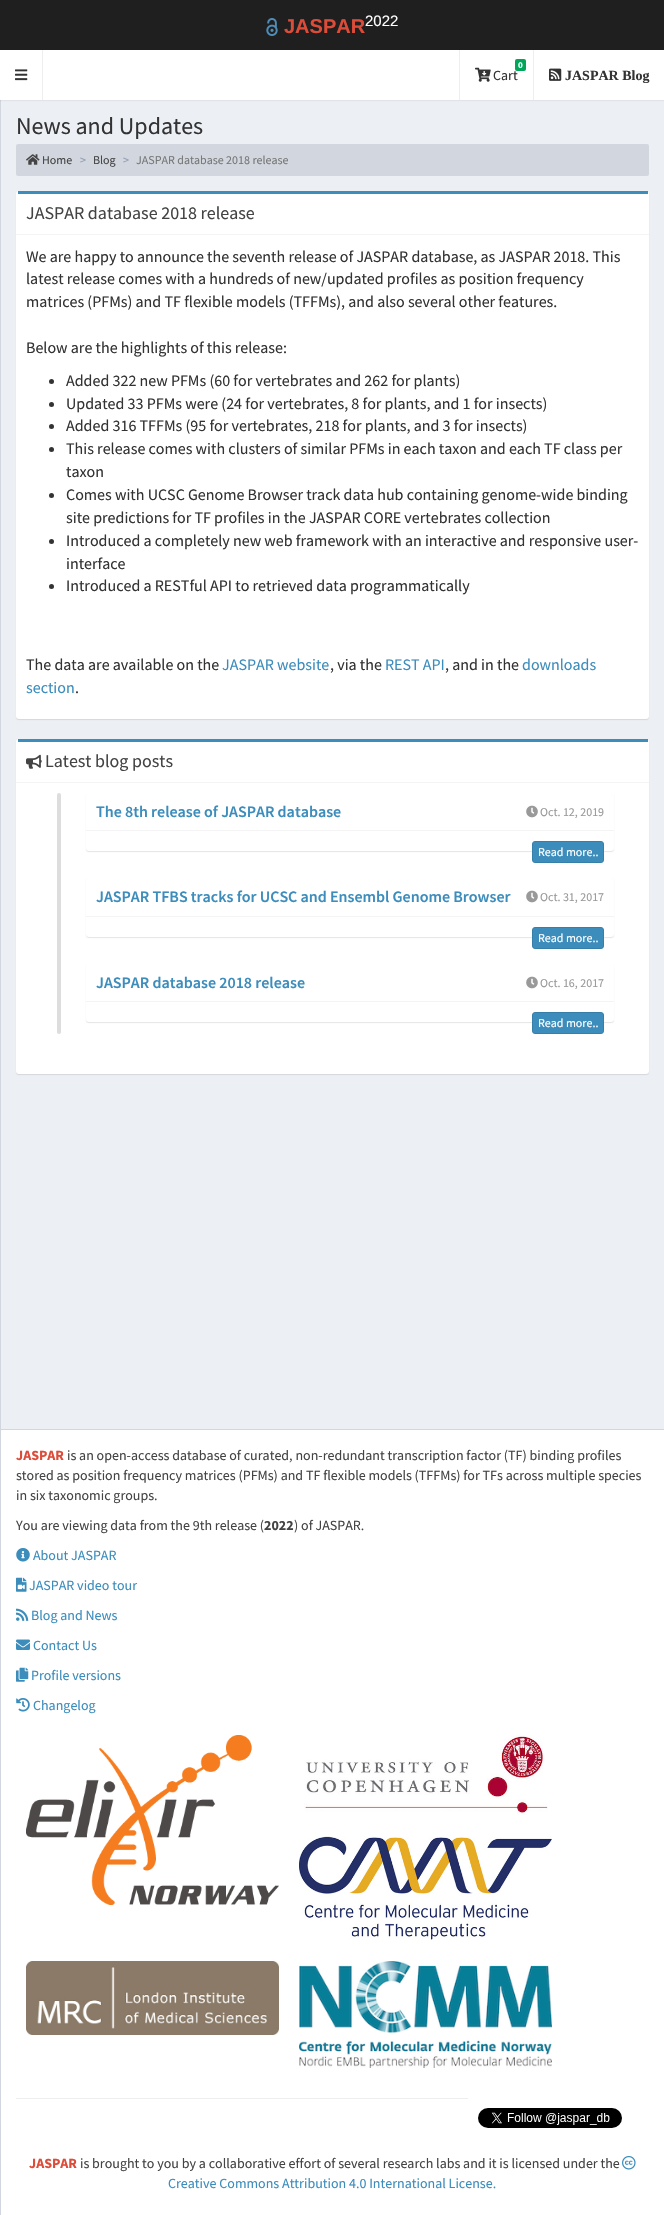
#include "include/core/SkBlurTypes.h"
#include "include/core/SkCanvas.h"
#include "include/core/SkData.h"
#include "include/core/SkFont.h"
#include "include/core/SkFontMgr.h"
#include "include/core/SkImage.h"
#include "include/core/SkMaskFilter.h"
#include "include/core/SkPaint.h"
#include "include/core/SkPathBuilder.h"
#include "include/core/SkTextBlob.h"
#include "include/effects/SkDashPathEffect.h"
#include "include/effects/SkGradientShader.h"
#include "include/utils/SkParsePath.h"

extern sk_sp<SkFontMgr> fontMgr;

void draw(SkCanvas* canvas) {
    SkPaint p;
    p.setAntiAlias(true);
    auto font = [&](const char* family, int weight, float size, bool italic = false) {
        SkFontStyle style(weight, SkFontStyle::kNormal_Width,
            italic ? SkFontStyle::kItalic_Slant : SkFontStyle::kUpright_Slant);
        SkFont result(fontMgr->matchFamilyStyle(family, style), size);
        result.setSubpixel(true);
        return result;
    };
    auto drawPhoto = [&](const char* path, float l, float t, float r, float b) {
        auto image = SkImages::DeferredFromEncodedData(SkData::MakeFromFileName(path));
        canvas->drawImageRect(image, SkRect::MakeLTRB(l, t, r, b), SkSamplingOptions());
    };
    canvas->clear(0xFFECF0F5);
    p.setColor(0xFFD2D6DE);
    canvas->drawRect(SkRect::MakeLTRB(0, 100, 1, 1429), p);
    p.setColor(0x0D000000);
    p.setMaskFilter(SkMaskFilter::MakeBlur(kNormal_SkBlurStyle, 0.5f));
    canvas->drawRect(SkRect::MakeLTRB(0, 1, 664, 101), p);
    p.setMaskFilter(nullptr);
    p.setColor(0xFF1F1F1F);
    canvas->drawRect(SkRect::MakeLTRB(0, 0, 664, 50), p);
    drawPhoto("media/1.png", 266, 18, 278, 36);
    auto font1 = font("Liberation Sans", 700, 20);
    p.setColor(0xFFDD4B39);
    canvas->drawString("JASPAR", 284, 33, font1, p);
    auto font2 = font("Liberation Sans", 400, 15);
    p.setColor(0xFFFFFFFF);
    canvas->drawString("2022", 365, 26, font2, p);
    canvas->drawRect(SkRect::MakeLTRB(0, 50, 664, 100), p);
    p.setColor(0xFFEEEEEE);
    canvas->drawRect(SkRect::MakeLTRB(42, 50, 43, 100), p);
    drawPhoto("media/2.png", 15, 69, 28, 81);
    canvas->drawRect(SkRect::MakeLTRB(459, 50, 460, 100), p);
    auto font3 = font("Source Sans Pro", 400, 14);
    p.setColor(0xFF333333);
    canvas->drawString("Cart", 493, 80, font3, p);
    p.setColor(0xFF00A65A);
    canvas->drawRoundRect(SkRect::MakeLTRB(515, 59, 526, 71), 2, 2, p);
    auto font4 = font("Source Sans Pro", 700, 9);
    p.setColor(0xFFFFFFFF);
    canvas->drawString("0", 518, 68, font4, p);
    drawPhoto("media/3.png", 475, 67, 491, 82);
    p.setColor(0xFFEEEEEE);
    canvas->drawRect(SkRect::MakeLTRB(533, 50, 534, 100), p);
    drawPhoto("media/4.png", 549, 68, 562, 81);
    auto font5 = font("Liberation Serif", 700, 14);
    p.setColor(0xFF333333);
    canvas->drawString("JASPAR Blog", 565, 80, font5, p);
    auto font6 = font("Source Sans Pro", 400, 24);
    canvas->drawString("News and Updates", 16, 134, font6, p);
    p.setColor(0xFFD2D6DE);
    canvas->drawRoundRect(SkRect::MakeLTRB(16, 144, 649, 176), 2, 2, p);
    drawPhoto("media/5.png", 26, 154, 40, 165);
    auto font7 = font("Source Sans Pro", 400, 12);
    p.setColor(0xFF444444);
    canvas->drawString("Home", 42, 164, font7, p);
    p.setColor(0xFF97A0B3);
    canvas->drawString(">", 80, 164, font7, p);
    p.setColor(0xFF444444);
    canvas->drawString("Blog", 93, 164, font7, p);
    p.setColor(0xFF97A0B3);
    canvas->drawString(">", 123, 164, font7, p);
    p.setColor(0xFF777777);
    canvas->drawString("JASPAR database 2018 release", 136, 164, font7, p);
    p.setColor(0x1A000000);
    p.setMaskFilter(SkMaskFilter::MakeBlur(kNormal_SkBlurStyle, 0.5f));
    canvas->drawRoundRect(SkRect::MakeLTRB(16, 192, 649, 720), 3, 3, p);
    p.setMaskFilter(nullptr);
    p.setColor(0xFFFFFFFF);
    canvas->drawRoundRect(SkRect::MakeLTRB(16, 191, 649, 719), 3, 3, p);
    p.setColor(0xFF3C8DBC);
    canvas->drawRect(SkRect::MakeLTRB(18, 191, 648, 194), p);
    p.setColor(0xFFF4F4F4);
    canvas->drawRect(SkRect::MakeLTRB(16, 234, 649, 235), p);
    auto font8 = font("Source Sans Pro", 400, 18);
    p.setColor(0xFF444444);
    canvas->drawString("JASPAR database 2018 release", 26, 219, font8, p);
    auto font9 = font("Source Sans Pro", 400, 16);
    p.setColor(0xFF333333);
    {
        const struct { const char* s; float x, y; } items[] = {
            {"We are happy to announce the seventh release of JASPAR database, as JASPAR 2018. This", 26, 262},
            {"latest release comes with a hundreds of new/updated profiles as position frequency", 26, 284},
            {"matrices (PFMs) and TF flexible models (TFFMs), and also several other features.", 26, 307},
            {"Below are the highlights of this release:", 26, 353},
        };
        for (auto [s, x, y] : items) {
            canvas->drawString(s, x, y, font9, p);
        }
    }
    canvas->drawCircle(51.5f, 381.5f, 2.5f, p);
    canvas->drawString("Added 322 new PFMs (60 for vertebrates and 262 for plants)", 66, 386, font9, p);
    canvas->drawCircle(51.5f, 404.5f, 2.5f, p);
    canvas->drawString("Updated 33 PFMs were (24 for vertebrates, 8 for plants, and 1 for insects)", 66, 409, font9, p);
    canvas->drawCircle(51.5f, 426.5f, 2.5f, p);
    canvas->drawString("Added 316 TFFMs (95 for vertebrates, 218 for plants, and 3 for insects)", 66, 431, font9, p);
    canvas->drawCircle(51.5f, 449.5f, 2.5f, p);
    canvas->drawString("This release comes with clusters of similar PFMs in each taxon and each TF class per", 66, 454, font9, p);
    canvas->drawString("taxon", 66, 477, font9, p);
    canvas->drawCircle(51.5f, 495.5f, 2.5f, p);
    canvas->drawString("Comes with UCSC Genome Browser track data hub containing genome-wide binding", 66, 500, font9, p);
    canvas->drawString("site predictions for TF profiles in the JASPAR CORE vertebrates collection", 66, 523, font9, p);
    canvas->drawCircle(51.5f, 541.5f, 2.5f, p);
    canvas->drawString("Introduced a completely new web framework with an interactive and responsive user-", 66, 546, font9, p);
    canvas->drawString("interface", 66, 569, font9, p);
    canvas->drawCircle(51.5f, 586.5f, 2.5f, p);
    canvas->drawString("Introduced a RESTful API to retrieved data programmatically", 66, 591, font9, p);
    canvas->drawString("The data are available on the", 26, 670, font9, p);
    p.setColor(0xFF3C8DBC);
    canvas->drawString("JASPAR website", 222, 670, font9, p);
    p.setColor(0xFF333333);
    canvas->drawString(", via the", 330, 670, font9, p);
    p.setColor(0xFF3C8DBC);
    canvas->drawString("REST API", 385, 670, font9, p);
    p.setColor(0xFF333333);
    canvas->drawString(", and in the", 445, 670, font9, p);
    p.setColor(0xFF3C8DBC);
    canvas->drawString("downloads", 522, 670, font9, p);
    canvas->drawString("section", 26, 693, font9, p);
    p.setColor(0xFF333333);
    canvas->drawString(".", 75, 693, font9, p);
    p.setColor(0x1A000000);
    p.setMaskFilter(SkMaskFilter::MakeBlur(kNormal_SkBlurStyle, 0.5f));
    canvas->drawRoundRect(SkRect::MakeLTRB(16, 740, 649, 1075), 3, 3, p);
    p.setMaskFilter(nullptr);
    p.setColor(0xFFFFFFFF);
    canvas->drawRoundRect(SkRect::MakeLTRB(16, 739, 649, 1074), 3, 3, p);
    p.setColor(0xFF3C8DBC);
    canvas->drawRect(SkRect::MakeLTRB(18, 739, 648, 742), p);
    p.setColor(0xFFF4F4F4);
    canvas->drawRect(SkRect::MakeLTRB(16, 782, 649, 783), p);
    drawPhoto("media/6.png", 26, 754, 42, 769);
    p.setColor(0xFF444444);
    canvas->drawString("Latest blog posts", 45, 767, font8, p);
    p.setColor(0xFFDDDDDD);
    canvas->drawRoundRect(SkRect::MakeLTRB(57, 793, 61, 1034), 2, 2, p);
    p.setColor(0x1A000000);
    p.setMaskFilter(SkMaskFilter::MakeBlur(kNormal_SkBlurStyle, 0.5f));
    canvas->drawRoundRect(SkRect::MakeLTRB(86, 794, 614, 852), 3, 3, p);
    p.setMaskFilter(nullptr);
    p.setColor(0xFFFFFFFF);
    canvas->drawRoundRect(SkRect::MakeLTRB(86, 793, 614, 851), 3, 3, p);
    p.setColor(0xFFF4F4F4);
    canvas->drawRect(SkRect::MakeLTRB(86, 830, 614, 831), p);
    auto font10 = font("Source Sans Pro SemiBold", 600, 16);
    p.setColor(0xFF3C8DBC);
    canvas->drawString("The 8th release of JASPAR database", 96, 817, font10, p);
    drawPhoto("media/7.png", 526, 805, 538, 818);
    p.setColor(0xFF999999);
    canvas->drawString("Oct. 12, 2019", 540, 816, font7, p);
    p.setColor(0xFF3C8DBC);
    canvas->drawRoundRect(SkRect::MakeLTRB(532.5f, 841.5f, 603.5f, 862.5f), 2.5f, 2.5f, p);
    p.setStyle(SkPaint::kStroke_Style);
    p.setStrokeWidth(1);
    p.setColor(0xFF367FA9);
    canvas->drawRoundRect(SkRect::MakeLTRB(532.5f, 841.5f, 603.5f, 862.5f), 2.5f, 2.5f, p);
    p.setStyle(SkPaint::kFill_Style);
    p.setColor(0xFFFFFFFF);
    canvas->drawString("Read more..", 538, 856, font7, p);
    p.setColor(0x1A000000);
    p.setMaskFilter(SkMaskFilter::MakeBlur(kNormal_SkBlurStyle, 0.5f));
    canvas->drawRoundRect(SkRect::MakeLTRB(86, 879, 614, 938), 3, 3, p);
    p.setMaskFilter(nullptr);
    p.setColor(0xFFFFFFFF);
    canvas->drawRoundRect(SkRect::MakeLTRB(86, 878, 614, 937), 3, 3, p);
    p.setColor(0xFFF4F4F4);
    canvas->drawRect(SkRect::MakeLTRB(86, 916, 614, 917), p);
    p.setColor(0xFF3C8DBC);
    canvas->drawString("JASPAR TFBS tracks for UCSC and Ensembl Genome Browser", 96, 902, font10, p);
    drawPhoto("media/7.png", 526, 890, 538, 903);
    p.setColor(0xFF999999);
    canvas->drawString("Oct. 31, 2017", 540, 901, font7, p);
    p.setColor(0xFF3C8DBC);
    canvas->drawRoundRect(SkRect::MakeLTRB(532.5f, 927.5f, 603.5f, 948.5f), 2.5f, 2.5f, p);
    p.setStyle(SkPaint::kStroke_Style);
    p.setColor(0xFF367FA9);
    canvas->drawRoundRect(SkRect::MakeLTRB(532.5f, 927.5f, 603.5f, 948.5f), 2.5f, 2.5f, p);
    p.setStyle(SkPaint::kFill_Style);
    p.setColor(0xFFFFFFFF);
    canvas->drawString("Read more..", 538, 942, font7, p);
    p.setColor(0x1A000000);
    p.setMaskFilter(SkMaskFilter::MakeBlur(kNormal_SkBlurStyle, 0.5f));
    canvas->drawRoundRect(SkRect::MakeLTRB(86, 965, 614, 1023), 3, 3, p);
    p.setMaskFilter(nullptr);
    p.setColor(0xFFFFFFFF);
    canvas->drawRoundRect(SkRect::MakeLTRB(86, 964, 614, 1022), 3, 3, p);
    p.setColor(0xFFF4F4F4);
    canvas->drawRect(SkRect::MakeLTRB(86, 1001, 614, 1002), p);
    p.setColor(0xFF3C8DBC);
    canvas->drawString("JASPAR database 2018 release", 96, 988, font10, p);
    drawPhoto("media/7.png", 526, 976, 538, 989);
    p.setColor(0xFF999999);
    canvas->drawString("Oct. 16, 2017", 540, 987, font7, p);
    p.setColor(0xFF3C8DBC);
    canvas->drawRoundRect(SkRect::MakeLTRB(532.5f, 1012.5f, 603.5f, 1033.5f), 2.5f, 2.5f, p);
    p.setStyle(SkPaint::kStroke_Style);
    p.setColor(0xFF367FA9);
    canvas->drawRoundRect(SkRect::MakeLTRB(532.5f, 1012.5f, 603.5f, 1033.5f), 2.5f, 2.5f, p);
    p.setStyle(SkPaint::kFill_Style);
    p.setColor(0xFFFFFFFF);
    canvas->drawString("Read more..", 538, 1027, font7, p);
    {
        const struct { float l, t, r, b; SkColor color; } items[] = {
            {1, 1430, 664, 2215, 0xFFFFFFFF},
            {0, 1429, 664, 1430, 0xFFD2D6DE},
            {0, 1429, 1, 2215, 0xFFD2D6DE},
        };
        for (auto [l, t, r, b, color] : items) {
            p.setColor(color);
            canvas->drawRect(SkRect::MakeLTRB(l, t, r, b), p);
        }
    }
    auto font11 = font("Source Sans Pro", 700, 14);
    p.setColor(0xFFDD4B39);
    canvas->drawString("JASPAR", 16, 1460, font11, p);
    p.setColor(0xFF444444);
    {
        const struct { const char* s; float x, y; } items[] = {
            {"is an open-access database of curated, non-redundant transcription factor (TF) binding profiles", 67, 1460},
            {"stored as position frequency matrices (PFMs) and TF flexible models (TFFMs) for TFs across multiple species", 16, 1480},
            {"in six taxonomic groups.", 16, 1500},
            {"You are viewing data from the 9th release (", 16, 1530},
        };
        for (auto [s, x, y] : items) {
            canvas->drawString(s, x, y, font3, p);
        }
    }
    canvas->drawString("2022", 264, 1530, font11, p);
    canvas->drawString(") of JASPAR.", 294, 1530, font3, p);
    drawPhoto("media/8.png", 16, 1548, 30, 1562);
    p.setColor(0xFF3C8DBC);
    canvas->drawString("About JASPAR", 33, 1560, font3, p);
    drawPhoto("media/9.png", 16, 1577, 27, 1592);
    canvas->drawString("JASPAR video tour", 29, 1590, font3, p);
    drawPhoto("media/10.png", 16, 1608, 29, 1621);
    canvas->drawString("Blog and News", 31, 1620, font3, p);
    drawPhoto("media/11.png", 16, 1639, 30, 1650);
    canvas->drawString("Contact Us", 33, 1650, font3, p);
    drawPhoto("media/12.png", 16, 1667, 29, 1682);
    canvas->drawString("Profile versions", 31, 1680, font3, p);
    drawPhoto("media/13.png", 16, 1698, 30, 1712);
    canvas->drawString("Changelog", 33, 1710, font3, p);
    drawPhoto("media/14.png", 26, 1735, 279, 1905);
    drawPhoto("media/15.png", 304, 1735, 548, 1815);
    drawPhoto("media/16.png", 299, 1836, 552, 1940);
    drawPhoto("media/17.png", 26, 1961, 279, 2035);
    drawPhoto("media/18.png", 299, 1961, 552, 2068);
    p.setColor(0xFFEEEEEE);
    canvas->drawRect(SkRect::MakeLTRB(16, 2098, 468, 2099), p);
    drawPhoto("media/19.png", 478, 2108, 622, 2128);
    p.setColor(0xFFDD4B39);
    canvas->drawString("JASPAR", 29, 2168, font11, p);
    p.setColor(0xFF444444);
    canvas->drawString("is brought to you by a collaborative effort of several research labs and it is licensed under the", 80, 2168, font3, p);
    drawPhoto("media/20.png", 622, 2156, 636, 2170);
    p.setColor(0xFF3C8DBC);
    canvas->drawString("Creative Commons Attribution 4.0 International License.", 168, 2188, font3, p);
}
